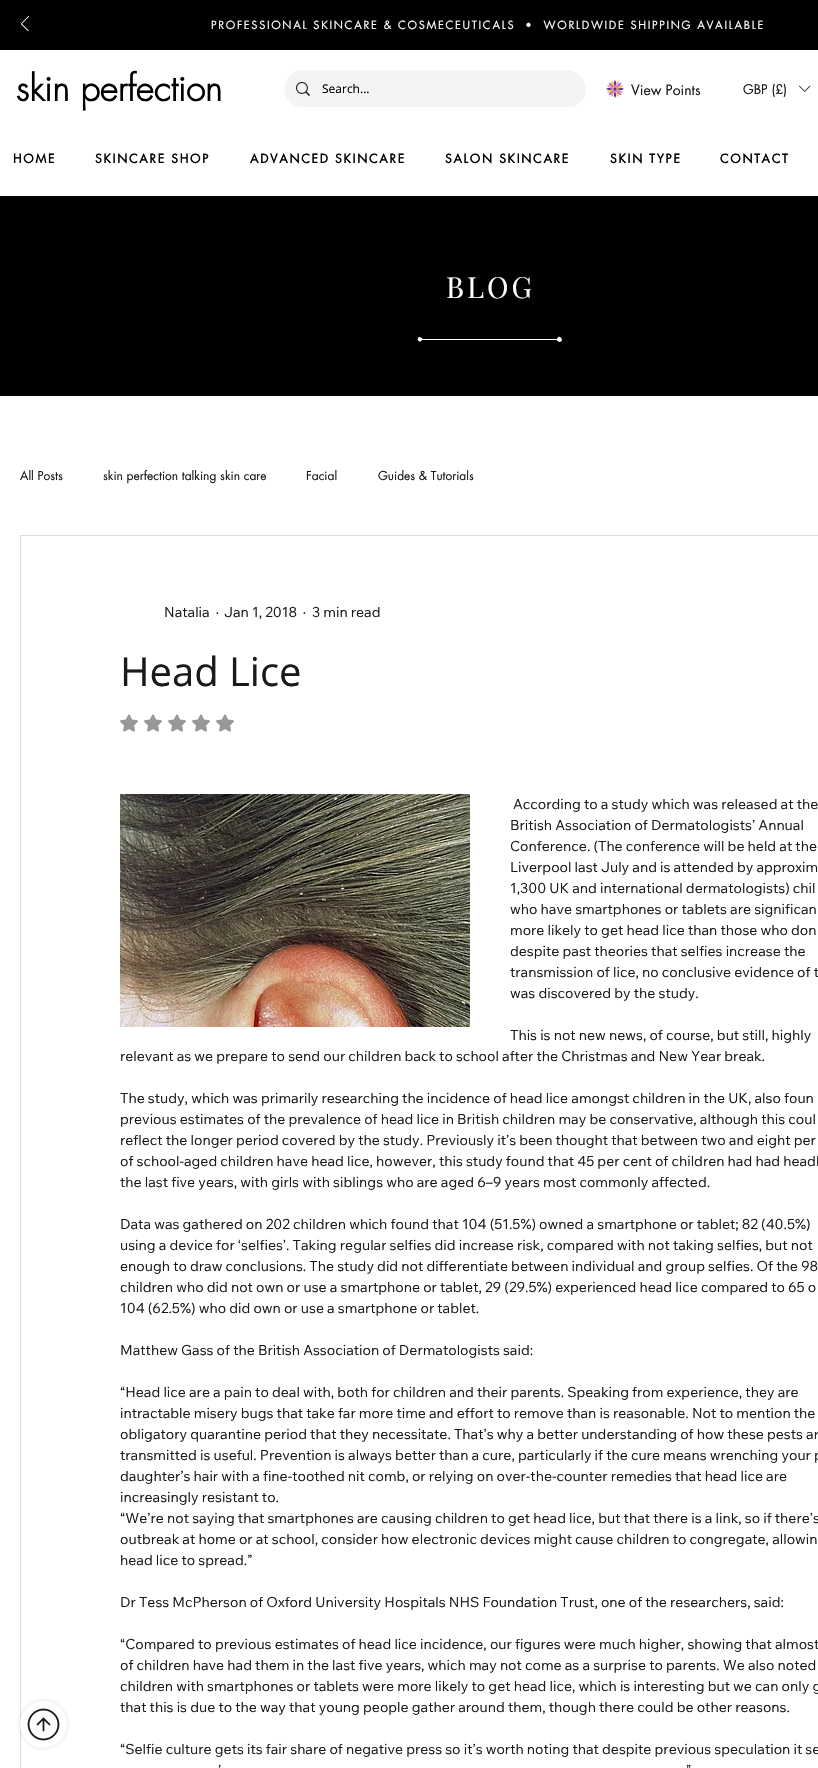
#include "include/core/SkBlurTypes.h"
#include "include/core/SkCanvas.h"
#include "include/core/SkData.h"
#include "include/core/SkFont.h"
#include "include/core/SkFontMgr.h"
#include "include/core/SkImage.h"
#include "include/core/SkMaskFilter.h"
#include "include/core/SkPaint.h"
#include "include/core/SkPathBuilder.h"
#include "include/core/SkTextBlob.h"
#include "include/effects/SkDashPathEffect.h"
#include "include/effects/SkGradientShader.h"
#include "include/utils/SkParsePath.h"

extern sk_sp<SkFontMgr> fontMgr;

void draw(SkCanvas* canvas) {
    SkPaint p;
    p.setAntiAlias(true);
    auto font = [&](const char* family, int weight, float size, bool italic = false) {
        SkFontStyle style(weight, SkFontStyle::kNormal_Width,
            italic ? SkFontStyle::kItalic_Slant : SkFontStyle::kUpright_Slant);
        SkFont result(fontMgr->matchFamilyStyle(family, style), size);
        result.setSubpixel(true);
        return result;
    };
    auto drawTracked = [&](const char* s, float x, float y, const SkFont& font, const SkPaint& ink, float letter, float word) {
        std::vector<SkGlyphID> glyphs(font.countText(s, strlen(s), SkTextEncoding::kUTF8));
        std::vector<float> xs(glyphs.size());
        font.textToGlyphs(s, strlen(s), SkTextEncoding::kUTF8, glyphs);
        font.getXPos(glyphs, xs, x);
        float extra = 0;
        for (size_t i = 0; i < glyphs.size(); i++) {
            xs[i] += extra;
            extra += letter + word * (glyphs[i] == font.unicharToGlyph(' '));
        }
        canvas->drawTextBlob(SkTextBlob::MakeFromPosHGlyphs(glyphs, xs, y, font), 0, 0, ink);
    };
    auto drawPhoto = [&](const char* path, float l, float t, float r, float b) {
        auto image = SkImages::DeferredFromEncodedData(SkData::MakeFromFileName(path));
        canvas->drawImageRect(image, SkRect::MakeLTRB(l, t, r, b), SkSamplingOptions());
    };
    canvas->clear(0xFFFFFFFF);
    p.setColor(0xFF000000);
    canvas->drawRect(SkRect::MakeLTRB(0, 0, 818, 50), p);
    drawPhoto("media/1.png", 21, 16, 29, 31);
    auto font1 = font("futura", 400, 11);
    p.setColor(0xFFFFFFFF);
    drawTracked("PROFESSIONAL SKINCARE & COSMECEUTICALS  •  WORLDWIDE SHIPPING AVAILABLE", 211, 29, font1, p, 1.65f, 0);
    auto font2 = font("futura", 700, 35);
    p.setColor(0xFF000000);
    canvas->drawString("skin perfection", 16, 101, font2, p);
    p.setColor(0xFFF4F4F4);
    canvas->drawPath(SkPathBuilder().moveTo(303, 70).cubicTo(279, 70, 278, 107, 303, 107).lineTo(571, 107).cubicTo(576, 106, 580, 103, 583, 99).cubicTo(591, 87, 581, 70, 567, 70).close().detach(), p);
    drawPhoto("media/2.png", 296, 82, 310, 96);
    auto font3 = font("Open Sans", 400, 12);
    p.setColor(0xFF000000);
    canvas->drawString("Search...", 322, 93, font3, p);
    drawPhoto("media/3.png", 606, 80, 624, 98);
    auto font4 = font("futura", 400, 14);
    p.setColor(0xFF1A1A1A);
    canvas->drawString("View Points", 631, 95, font4, p);
    auto font5 = font("futura", 400, 13);
    canvas->drawString("GBP (£)", 743, 94, font5, p);
    drawPhoto("media/4.png", 799, 85, 811, 92);
    auto font6 = font("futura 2", 700, 12);
    p.setColor(0xFF000000);
    {
        const struct { const char* s; float x, y; } items[] = {
            {"HOME", 13, 163},
            {"SKINCARE SHOP", 95, 163},
            {"ADVANCED SKINCARE", 250, 163},
            {"SALON SKINCARE", 445, 163},
            {"SKIN TYPE", 610, 163},
            {"CONTACT", 720, 163},
        };
        for (auto [s, x, y] : items) {
            drawTracked(s, x, y, font6, p, 1.75f, 0);
        }
    }
    canvas->drawRect(SkRect::MakeLTRB(0, 196, 818, 396), p);
    auto font7 = font("Playfair Display", 400, 29);
    p.setColor(0xFFFFFFFF);
    drawTracked("BLOG", 446, 298, font7, p, 3, 0);
    canvas->drawPath(SkPathBuilder().moveTo(422, 340).lineTo(557, 340).cubicTo(557, 341, 559, 342, 560, 342).cubicTo(565, 341, 559, 333, 557, 339).lineTo(423, 339).cubicTo(422, 338, 421, 337, 419, 337).cubicTo(416, 339, 419, 343, 421, 341).close().detach(), p);
    auto font8 = font("futura", 400, 12);
    p.setColor(0xFF1A1A1A);
    {
        const struct { const char* s; float x, y; } items[] = {
            {"All Posts", 20, 480},
            {"skin perfection talking skin care", 103, 480},
            {"Facial", 306, 480},
            {"Guides & Tutorials", 378, 480},
        };
        for (auto [s, x, y] : items) {
            canvas->drawString(s, x, y, font8, p);
        }
    }
    p.setStyle(SkPaint::kStroke_Style);
    p.setStrokeWidth(1);
    p.setColor(0xFFDFDEDE);
    canvas->drawRect(SkRect::MakeLTRB(20.5f, 535.5f, 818.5f, 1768.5f), p);
    auto font9 = font("Wix Madefor Text", 400, 14);
    p.setStyle(SkPaint::kFill_Style);
    p.setColor(0xFF1A1A1A);
    {
        const struct { const char* s; float x, y; } items[] = {
            {"Natalia", 164, 617},
            {"·", 216, 617},
            {"Jan 1, 2018", 224, 617},
            {"·", 303, 617},
            {"3 min read", 312, 617},
        };
        for (auto [s, x, y] : items) {
            canvas->drawString(s, x, y, font9, p);
        }
    }
    auto font10 = font("Open Sans", 400, 40);
    canvas->drawString("Head Lice", 120, 686, font10, p);
    drawPhoto("media/5.png", 120, 714, 138, 732);
    drawPhoto("media/5.png", 144, 714, 162, 732);
    drawPhoto("media/5.png", 168, 714, 186, 732);
    drawPhoto("media/5.png", 192, 714, 210, 732);
    drawPhoto("media/5.png", 216, 714, 234, 732);
    drawPhoto("media/6.png", 120, 794, 470, 1027);
    {
        const struct { const char* s; float x, y; } items[] = {
            {"According to a study which was released at the", 513, 809},
            {"British Association of Dermatologists’ Annual", 510, 830},
            {"Conference. (The conference will be held at the", 510, 851},
            {"Liverpool last July and is attended by approxim", 510, 872},
            {"1,300 UK and international dermatologists) chil", 510, 893},
            {"who have smartphones or tablets are significan", 510, 914},
            {"more likely to get head lice than those who don", 510, 935},
            {"despite past theories that selfies increase the", 510, 956},
            {"transmission of lice, no conclusive evidence of t", 510, 977},
            {"was discovered by the study.", 510, 998},
            {"This is not new news, of course, but still, highly", 510, 1040},
            {"relevant as we prepare to send our children back to school after the Christmas and New Year break.", 120, 1061},
            {"The study, which was primarily researching the incidence of head lice amongst children in the UK, also foun", 120, 1103},
            {"previous estimates of the prevalence of head lice in British children may be conservative, although this coul", 120, 1124},
            {"reflect the longer period covered by the study. Previously it’s been thought that between two and eight per", 120, 1145},
            {"of school-aged children have head lice, however, this study found that 45 per cent of children had had headl", 120, 1166},
            {"the last five years, with girls with siblings who are aged 6–9 years most commonly affected.", 120, 1187},
            {"Data was gathered on 202 children which found that 104 (51.5%) owned a smartphone or tablet; 82 (40.5%)", 120, 1229},
            {"using a device for ‘selfies’. Taking regular selfies did increase risk, compared with not taking selfies, but not", 120, 1250},
            {"enough to draw conclusions. The study did not differentiate between individual and group selfies. Of the 98", 120, 1271},
            {"children who did not own or use a smartphone or tablet, 29 (29.5%) experienced head lice compared to 65 o", 120, 1292},
            {"104 (62.5%) who did own or use a smartphone or tablet.", 120, 1313},
            {"Matthew Gass of the British Association of Dermatologists said:", 120, 1355},
            {"“Head lice are a pain to deal with, both for children and their parents. Speaking from experience, they are", 120, 1397},
            {"intractable misery bugs that take far more time and effort to remove than is reasonable. Not to mention the", 120, 1418},
            {"obligatory quarantine period that they necessitate. That’s why a better understanding of how these pests ar", 120, 1439},
            {"transmitted is useful. Prevention is always better than a cure, particularly if the cure means wrenching your p", 120, 1460},
            {"daughter’s hair with a fine-toothed nit comb, or relying on over-the-counter remedies that head lice are", 120, 1481},
            {"increasingly resistant to.", 120, 1502},
            {"“We’re not saying that smartphones are causing children to get head lice, but that there is a link, so if there’s", 120, 1523},
            {"outbreak at home or at school, consider how electronic devices might cause children to congregate, allowin", 120, 1544},
            {"head lice to spread.”", 120, 1565},
            {"Dr Tess McPherson of Oxford University Hospitals NHS Foundation Trust, one of the researchers, said:", 120, 1607},
            {"“Compared to previous estimates of head lice incidence, our figures were much higher, showing that almost", 120, 1649},
            {"of children have had them in the last five years, which may not come as a surprise to parents. We also noted", 120, 1670},
            {"children with smartphones or tablets were more likely to get head lice, which is interesting but we can only g", 120, 1691},
            {"that this is due to the way that young people gather around them, though there could be other reasons.", 120, 1712},
            {"“Selfie culture gets its fair share of negative press so it’s worth noting that despite previous speculation it se", 120, 1754},
            {"’", 218, 1775},
            {"”", 686, 1775},
        };
        for (auto [s, x, y] : items) {
            canvas->drawString(s, x, y, font9, p);
        }
    }
    p.setColor(0x26242323);
    p.setMaskFilter(SkMaskFilter::MakeBlur(kNormal_SkBlurStyle, 2));
    canvas->drawRoundRect(SkRect::MakeLTRB(20, 1701, 67, 1748), 23.5f, 23.5f, p);
    p.setMaskFilter(nullptr);
    p.setColor(0xFFFFFFFF);
    canvas->drawCircle(43.5f, 1724.5f, 23.5f, p);
    drawPhoto("media/7.png", 27, 1708, 60, 1741);
}
